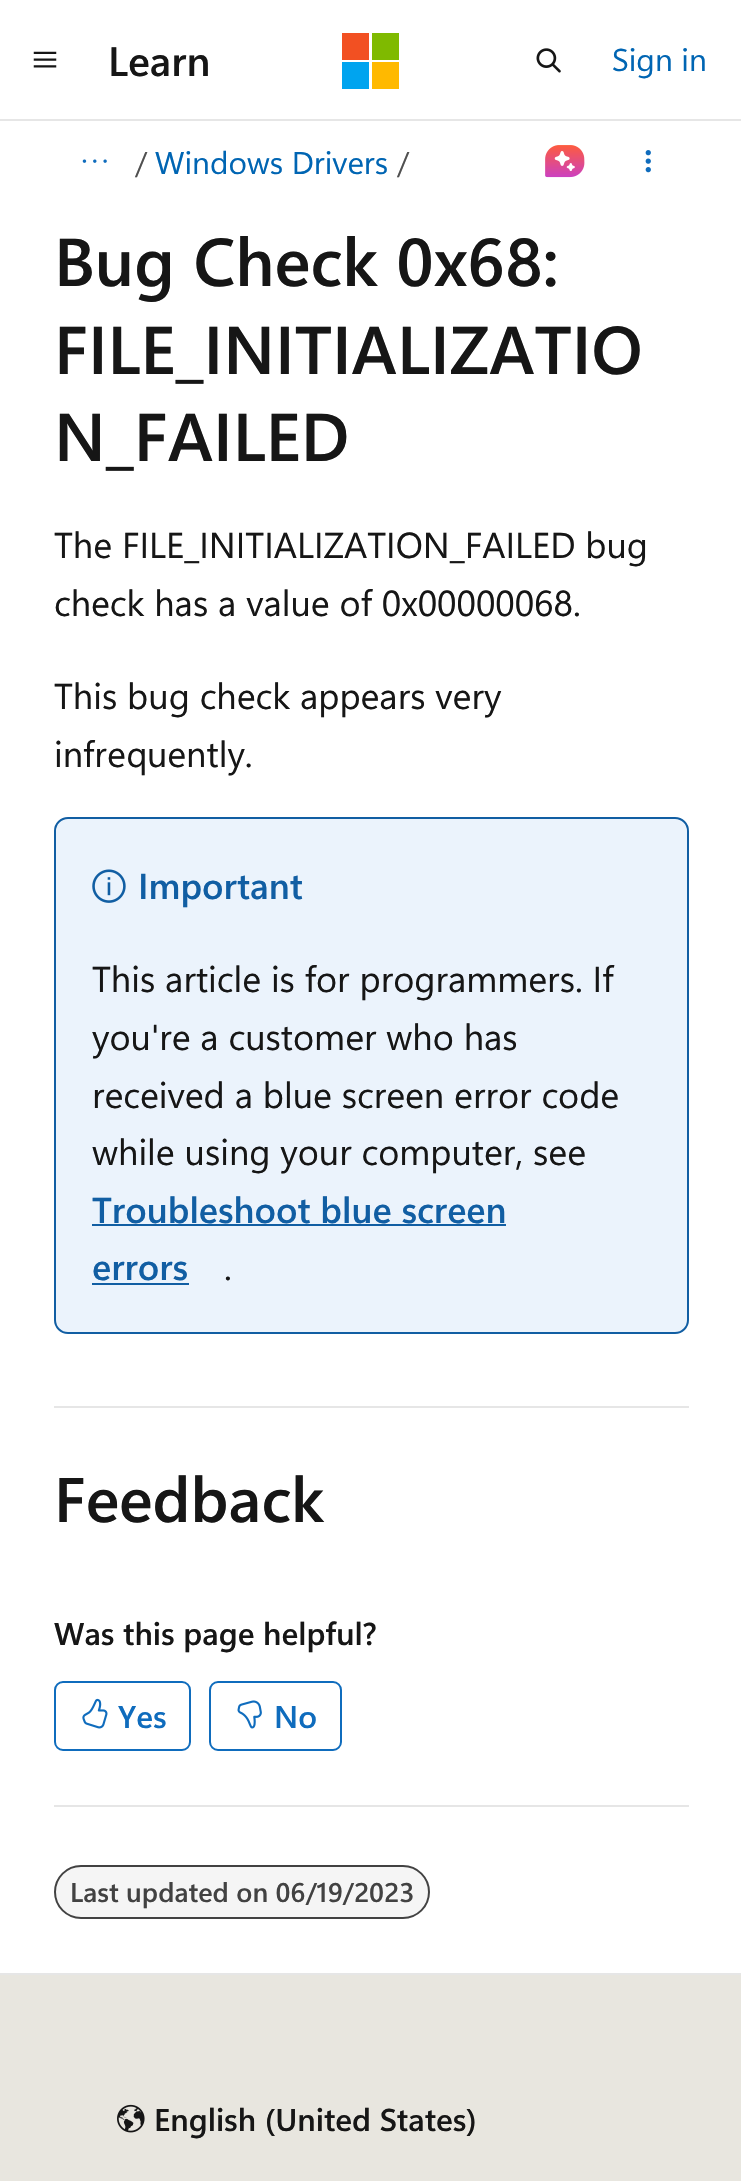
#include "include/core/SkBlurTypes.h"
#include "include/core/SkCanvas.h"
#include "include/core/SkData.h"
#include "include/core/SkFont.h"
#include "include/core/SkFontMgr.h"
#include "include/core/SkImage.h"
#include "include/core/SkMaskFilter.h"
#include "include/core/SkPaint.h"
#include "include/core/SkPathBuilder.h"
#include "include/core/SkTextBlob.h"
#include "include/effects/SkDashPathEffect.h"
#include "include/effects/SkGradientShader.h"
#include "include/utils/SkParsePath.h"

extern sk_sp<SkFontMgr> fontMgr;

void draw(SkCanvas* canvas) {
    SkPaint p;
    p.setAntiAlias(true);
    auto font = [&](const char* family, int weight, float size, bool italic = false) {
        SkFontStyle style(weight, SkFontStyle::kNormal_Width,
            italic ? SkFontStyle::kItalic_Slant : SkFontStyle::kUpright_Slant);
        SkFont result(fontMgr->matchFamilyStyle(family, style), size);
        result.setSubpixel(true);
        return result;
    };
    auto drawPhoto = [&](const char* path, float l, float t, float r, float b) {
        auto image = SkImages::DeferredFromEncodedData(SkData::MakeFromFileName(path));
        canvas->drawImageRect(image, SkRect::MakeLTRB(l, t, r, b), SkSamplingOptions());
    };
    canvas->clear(0xFFFFFFFF);
    p.setColor(0xFFE6E6E6);
    canvas->drawRect(SkRect::MakeLTRB(0, 119, 741, 121), p);
    drawPhoto("media/1.png", 33, 51, 57, 68);
    auto font1 = font("Segoe UI", 600, 41);
    p.setColor(0xFF161616);
    canvas->drawString("Learn", 108, 76, font1, p);
    {
        const struct { float l, t, r, b; SkColor color; } items[] = {
            {342, 33, 369, 60, 0xFFF25022},
            {372, 33, 399, 60, 0xFF7FBA00},
            {342, 62, 369, 89, 0xFF00A4EF},
            {372, 62, 399, 89, 0xFFFFB900},
        };
        for (auto [l, t, r, b, color] : items) {
            p.setColor(color);
            canvas->drawRect(SkRect::MakeLTRB(l, t, r, b), p);
        }
    }
    drawPhoto("media/2.png", 536, 48, 561, 73);
    auto font2 = font("Segoe UI", 400, 31.5f);
    p.setColor(0xFF0065B3);
    canvas->drawString("Sign in", 612, 71, font2, p);
    drawPhoto("media/3.png", 82, 159, 107, 163);
    p.setColor(0xFF505050);
    canvas->drawString("/", 135, 174, font2, p);
    p.setColor(0xFF0065B3);
    canvas->drawString("Windows Drivers", 155, 174, font2, p);
    p.setColor(0xFF505050);
    canvas->drawString("/", 397, 174, font2, p);
    drawPhoto("media/4.png", 545, 145, 585, 178);
    drawPhoto("media/5.png", 645, 150, 651, 173);
    auto font3 = font("Segoe UI", 600, 67.5f);
    p.setColor(0xFF161616);
    {
        const struct { const char* s; float x, y; } items[] = {
            {"Bug Check 0x68:", 54, 286},
            {"FILE_INITIALIZATIO", 54, 374},
            {"N_FAILED", 54, 461},
        };
        for (auto [s, x, y] : items) {
            canvas->drawString(s, x, y, font3, p);
        }
    }
    auto font4 = font("Segoe UI", 400, 36);
    {
        const struct { const char* s; float x, y; } items[] = {
            {"The FILE_INITIALIZATION_FAILED bug", 54, 558},
            {"check has a value of 0x00000068.", 54, 616},
            {"This bug check appears very", 54, 709},
            {"infrequently.", 54, 767},
        };
        for (auto [s, x, y] : items) {
            canvas->drawString(s, x, y, font4, p);
        }
    }
    p.setColor(0xFFEBF3FC);
    canvas->drawRoundRect(SkRect::MakeLTRB(55, 818, 688, 1333), 13, 13, p);
    p.setStyle(SkPaint::kStroke_Style);
    p.setStrokeWidth(2);
    p.setColor(0xFF115EA3);
    canvas->drawRoundRect(SkRect::MakeLTRB(55, 818, 688, 1333), 13, 13, p);
    drawPhoto("media/6.png", 92, 869, 126, 903);
    auto font5 = font("Segoe UI", 600, 36);
    p.setStyle(SkPaint::kFill_Style);
    canvas->drawString("Important", 138, 899, font5, p);
    p.setColor(0xFF161616);
    {
        const struct { const char* s; float x, y; } items[] = {
            {"This article is for programmers. If", 92, 992},
            {"you're a customer who has", 92, 1050},
            {"received a blue screen error code", 92, 1108},
            {"while using your computer, see", 92, 1165},
        };
        for (auto [s, x, y] : items) {
            canvas->drawString(s, x, y, font4, p);
        }
    }
    p.setColor(0xFF115EA3);
    canvas->drawString("Troubleshoot blue screen", 92, 1223, font5, p);
    canvas->drawRect(SkRect::MakeLTRB(92, 1224, 506, 1226), p);
    canvas->drawString("errors", 92, 1280, font5, p);
    canvas->drawRect(SkRect::MakeLTRB(92, 1283, 189, 1285), p);
    p.setColor(0xFF161616);
    canvas->drawString(".", 224, 1280, font4, p);
    p.setColor(0xFFE6E6E6);
    canvas->drawRect(SkRect::MakeLTRB(54, 1406, 689, 1408), p);
    auto font6 = font("Segoe UI", 600, 63);
    p.setColor(0xFF161616);
    canvas->drawString("Feedback", 54, 1522, font6, p);
    auto font7 = font("Segoe UI", 600, 31.5f);
    canvas->drawString("Was this page helpful?", 54, 1645, font7, p);
    p.setStyle(SkPaint::kStroke_Style);
    p.setColor(0xFF0F6CBD);
    canvas->drawRoundRect(SkRect::MakeLTRB(55, 1682, 190, 1750), 8, 8, p);
    drawPhoto("media/7.png", 82, 1698, 108, 1729);
    p.setStyle(SkPaint::kFill_Style);
    canvas->drawString("Yes", 118, 1728, font7, p);
    p.setStyle(SkPaint::kStroke_Style);
    canvas->drawRoundRect(SkRect::MakeLTRB(210, 1682, 341, 1750), 8, 8, p);
    drawPhoto("media/8.png", 237, 1700, 262, 1729);
    p.setStyle(SkPaint::kFill_Style);
    canvas->drawString("No", 274, 1728, font7, p);
    p.setColor(0xFFE6E6E6);
    canvas->drawRect(SkRect::MakeLTRB(54, 1805, 689, 1807), p);
    p.setColor(0xFFF5F5F5);
    canvas->drawRoundRect(SkRect::MakeLTRB(55, 1866, 429, 1918), 26, 26, p);
    p.setStyle(SkPaint::kStroke_Style);
    p.setColor(0xFF424242);
    canvas->drawRoundRect(SkRect::MakeLTRB(55, 1866, 429, 1918), 26, 26, p);
    auto font8 = font("Segoe UI", 600, 27);
    p.setStyle(SkPaint::kFill_Style);
    canvas->drawString("Last updated on 06/19/2023", 70, 1902, font8, p);
    p.setColor(0xFFE8E6DF);
    canvas->drawRect(SkRect::MakeLTRB(0, 1975, 741, 2181), p);
    p.setColor(0xFFE6E6E6);
    canvas->drawRect(SkRect::MakeLTRB(0, 1973, 741, 1975), p);
    drawPhoto("media/9.png", 117, 2104, 145, 2133);
    p.setColor(0xFF161616);
    canvas->drawString("English (United States)", 154, 2131, font7, p);
}
